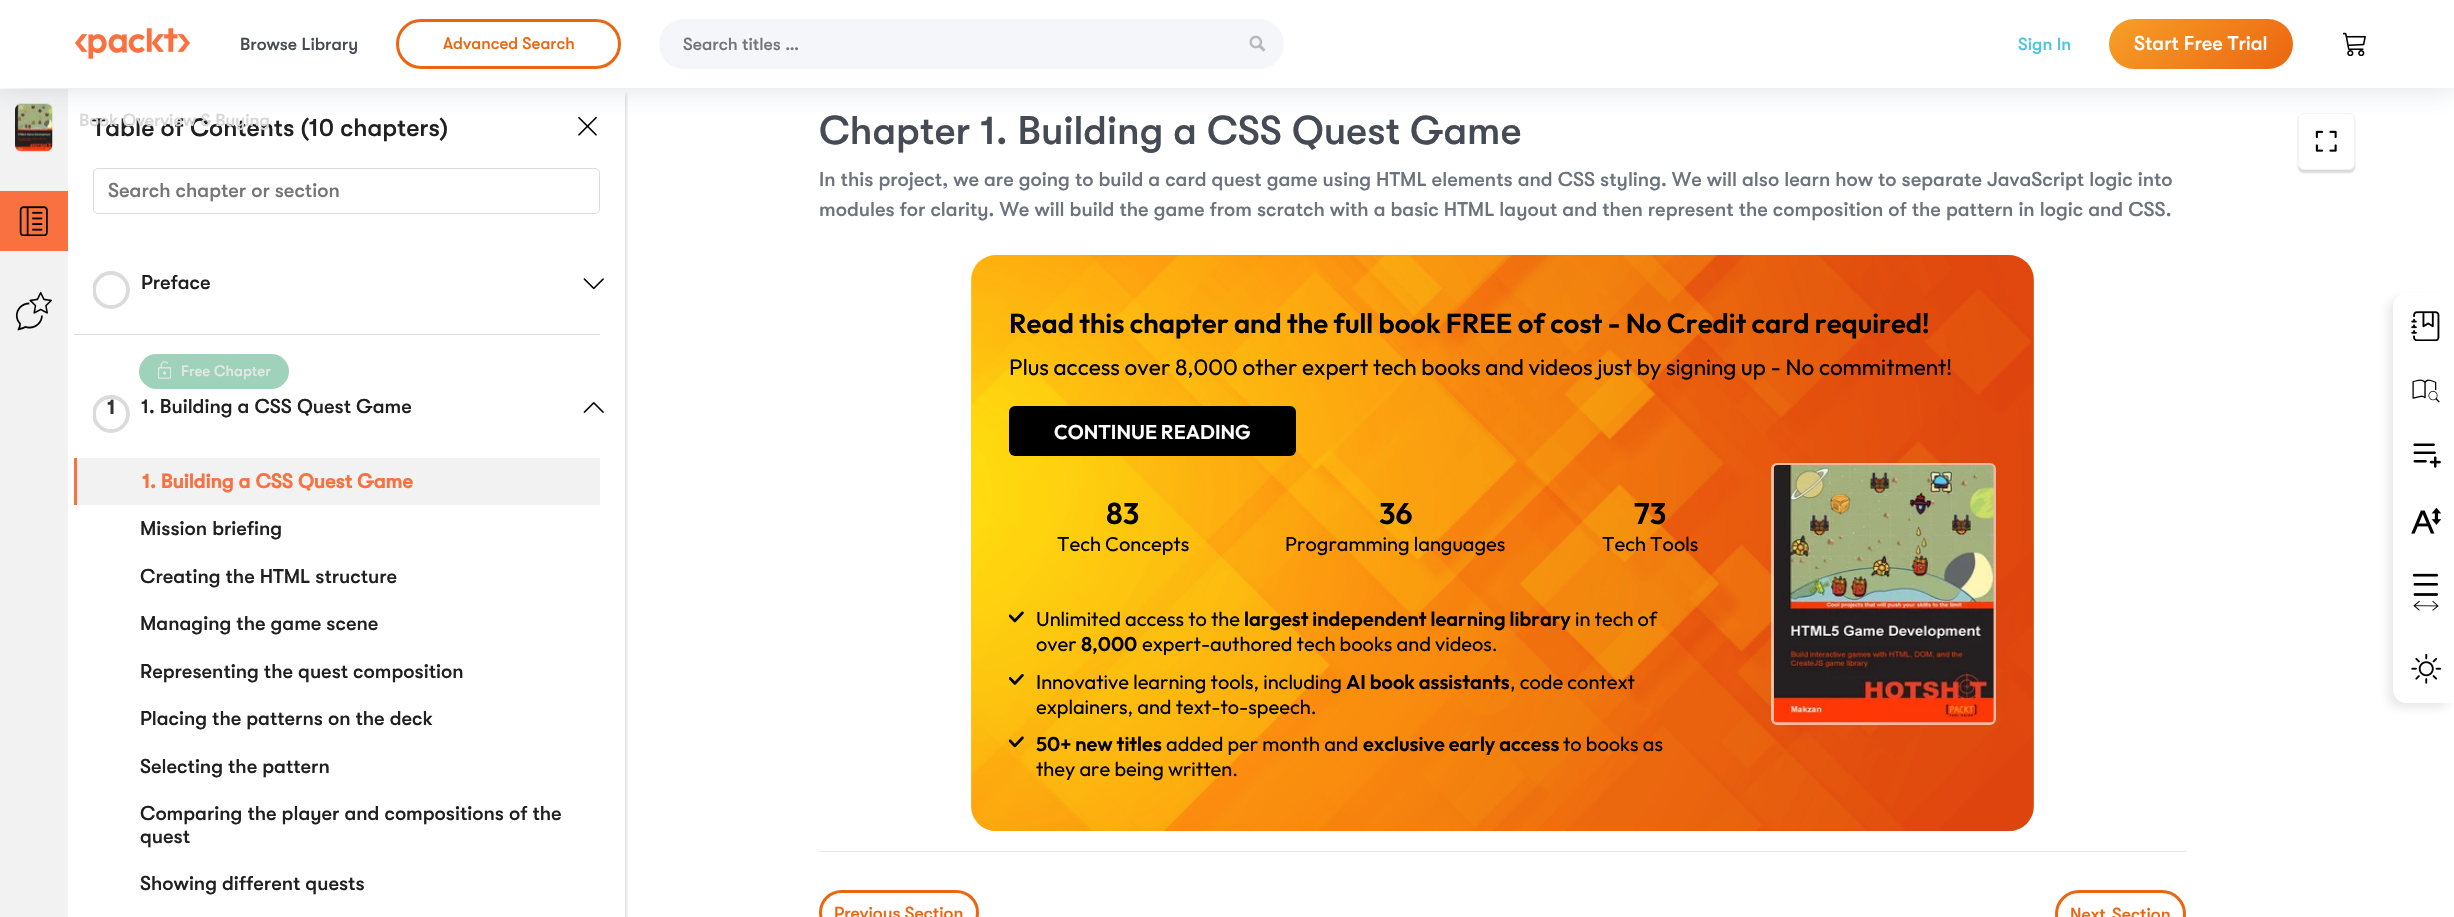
#include "include/core/SkBlurTypes.h"
#include "include/core/SkCanvas.h"
#include "include/core/SkData.h"
#include "include/core/SkFont.h"
#include "include/core/SkFontMgr.h"
#include "include/core/SkImage.h"
#include "include/core/SkMaskFilter.h"
#include "include/core/SkPaint.h"
#include "include/core/SkPathBuilder.h"
#include "include/core/SkTextBlob.h"
#include "include/effects/SkDashPathEffect.h"
#include "include/effects/SkGradientShader.h"
#include "include/utils/SkParsePath.h"

extern sk_sp<SkFontMgr> fontMgr;

void draw(SkCanvas* canvas) {
    SkPaint p;
    p.setAntiAlias(true);
    auto font = [&](const char* family, int weight, float size, bool italic = false) {
        SkFontStyle style(weight, SkFontStyle::kNormal_Width,
            italic ? SkFontStyle::kItalic_Slant : SkFontStyle::kUpright_Slant);
        SkFont result(fontMgr->matchFamilyStyle(family, style), size);
        result.setSubpixel(true);
        return result;
    };
    auto drawPhoto = [&](const char* path, float l, float t, float r, float b) {
        auto image = SkImages::DeferredFromEncodedData(SkData::MakeFromFileName(path));
        canvas->drawImageRect(image, SkRect::MakeLTRB(l, t, r, b), SkSamplingOptions());
    };
    canvas->clear(0xFFFFFFFF);
    canvas->save();
    canvas->clipRect(SkRect::MakeLTRB(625, 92, 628, 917));
    p.setColor(0x40000000);
    p.setMaskFilter(SkMaskFilter::MakeBlur(kNormal_SkBlurStyle, 2.5f));
    canvas->drawRect(SkRect::MakeLTRB(0, 94, 625, 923), p);
    p.setMaskFilter(nullptr);
    canvas->restore();
    p.setColor(0xFFF2F2F2);
    canvas->drawRect(SkRect::MakeLTRB(0, 89, 68, 917), p);
    drawPhoto("media/4.png", 15, 103, 53, 152);
    drawPhoto("media/7.png", 578, 116, 597, 136);
    p.setColor(0x26000000);
    p.setMaskFilter(SkMaskFilter::MakeBlur(kNormal_SkBlurStyle, 1));
    canvas->drawRoundRect(SkRect::MakeLTRB(2298, 115, 2355, 173), 6, 6, p);
    p.setMaskFilter(nullptr);
    p.setColor(0xFFFFFFFF);
    canvas->drawRoundRect(SkRect::MakeLTRB(2298.5f, 113.5f, 2354.5f, 169.5f), 5.5f, 5.5f, p);
    p.setStyle(SkPaint::kStroke_Style);
    p.setStrokeWidth(1);
    p.setColor(0xFFF2F2F2);
    canvas->drawRoundRect(SkRect::MakeLTRB(2298.5f, 113.5f, 2354.5f, 169.5f), 5.5f, 5.5f, p);
    p.setStyle(SkPaint::kFill_Style);
    p.setColor(0x263F4F6E);
    p.setMaskFilter(SkMaskFilter::MakeBlur(kNormal_SkBlurStyle, 12.5f));
    canvas->drawRect(SkRect::MakeLTRB(0, 4, 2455, 91), p);
    p.setMaskFilter(nullptr);
    p.setColor(0xFFFFFFFF);
    canvas->drawRect(SkRect::MakeLTRB(0, 0, 2454, 88), p);
    drawPhoto("media/1.png", 75, 28, 190, 59);
    auto font1 = font("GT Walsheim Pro", 500, 17.5f);
    p.setColor(0xFF454A55);
    canvas->drawString("Browse Library", 240, 50, font1, p);
    p.setStyle(SkPaint::kStroke_Style);
    p.setStrokeWidth(3);
    p.setColor(0xFFEC6611);
    canvas->drawRoundRect(SkRect::MakeLTRB(397.5f, 20.5f, 619.5f, 67.5f), 23.5f, 23.5f, p);
    auto font2 = font("GT Walsheim Pro", 500, 16.75f);
    p.setStyle(SkPaint::kFill_Style);
    canvas->drawString("Advanced Search", 443, 49, font2, p);
    p.setColor(0xFFF5F6FA);
    canvas->drawRoundRect(SkRect::MakeLTRB(659, 19, 1284, 69), 25, 25, p);
    p.setColor(0xFF757575);
    canvas->drawString("Search titles …", 683, 50, font1, p);
    drawPhoto("media/2.png", 1249, 35, 1266, 52);
    p.setColor(0xFF4AC5E3);
    canvas->drawString("Sign In", 2018, 50, font1, p);
    {
        const SkColor colors[] = {0xFFF79F27, 0xFFEC6611};
        const float stops[] = {0, 1};
        const SkPoint ends[] = {{2142, -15}, {2259, 102}};
        p.setShader(SkGradientShader::MakeLinear(ends, colors, stops, 2, SkTileMode::kClamp));
        p.setAlpha(255);
    }
    canvas->drawRoundRect(SkRect::MakeLTRB(2109, 19, 2293, 69), 25, 25, p);
    auto font3 = font("GT Walsheim Pro", 500, 20);
    p.setShader(nullptr);
    p.setColor(0xFFFFFFFF);
    canvas->drawString("Start Free Trial", 2134, 50, font3, p);
    drawPhoto("media/3.png", 2343, 32, 2366, 56);
    auto font4 = font("GT Walsheim Pro", 500, 25);
    p.setColor(0xFF202020);
    canvas->drawString("Table of Contents (10 chapters)", 92, 136, font4, p);
    p.setColor(0xFFD7D7D7);
    canvas->drawString("Book Overview & Buying", 79, 126, font1, p);
    p.setColor(0xFFF97141);
    canvas->drawRect(SkRect::MakeLTRB(0, 191, 68, 251), p);
    drawPhoto("media/5.png", 19, 206, 48, 236);
    drawPhoto("media/6.png", 15, 291, 52, 331);
    p.setStyle(SkPaint::kStroke_Style);
    p.setStrokeWidth(1);
    p.setColor(0xFFDBDBDB);
    canvas->drawRoundRect(SkRect::MakeLTRB(93.5f, 168.5f, 599.5f, 213.5f), 4.5f, 4.5f, p);
    p.setStyle(SkPaint::kFill_Style);
    p.setColor(0xFF757575);
    canvas->drawString("Search chapter or section", 108, 197, font3, p);
    p.setColor(0xFFDBDBDB);
    canvas->drawRect(SkRect::MakeLTRB(74, 334, 600, 335), p);
    canvas->save();
    canvas->clipRect(SkRect::MakeLTRB(93, 271, 130, 309));
    p.setStyle(SkPaint::kStroke_Style);
    p.setStrokeWidth(3.8f);
    canvas->drawCircle(111, 290, 17, p);
    canvas->restore();
    p.setStyle(SkPaint::kFill_Style);
    p.setColor(0xFF202020);
    canvas->drawString("Preface", 141, 289, font3, p);
    drawPhoto("media/8.png", 583, 278, 604, 290);
    p.setColor(0xFF9ED2BA);
    canvas->drawRoundRect(SkRect::MakeLTRB(139, 354, 289, 389), 17.5f, 17.5f, p);
    drawPhoto("media/9.png", 158, 361, 171, 379);
    auto font5 = font("GT Walsheim Pro", 500, 15);
    p.setColor(0xFFE6E6E6);
    canvas->drawString("Free Chapter", 181, 376, font5, p);
    canvas->save();
    canvas->clipRect(SkRect::MakeLTRB(93, 395, 130, 433));
    p.setStyle(SkPaint::kStroke_Style);
    p.setColor(0xFFDBDBDB);
    canvas->drawCircle(111, 414, 17, p);
    canvas->restore();
    auto font6 = font("GT Walsheim Pro", 700, 20);
    p.setStyle(SkPaint::kFill_Style);
    p.setColor(0xFF333333);
    canvas->drawString("1", 107, 414, font6, p);
    p.setColor(0xFF202020);
    canvas->drawString("1. Building a CSS Quest Game", 141, 413, font3, p);
    drawPhoto("media/10.png", 583, 402, 604, 413);
    p.setColor(0xFFF2F2F2);
    canvas->drawRect(SkRect::MakeLTRB(77, 458, 600, 505), p);
    p.setColor(0xFFF97141);
    canvas->drawRect(SkRect::MakeLTRB(74, 458, 77, 505), p);
    canvas->drawString("1. Building a CSS Quest Game", 142, 488, font6, p);
    p.setColor(0xFF202020);
    {
        const struct { const char* s; float x, y; } items[] = {
            {"Mission briefing", 140, 535},
            {"Creating the HTML structure", 140, 583},
            {"Managing the game scene", 140, 630},
            {"Representing the quest composition", 140, 678},
            {"Placing the patterns on the deck", 140, 725},
            {"Selecting the pattern", 140, 773},
            {"Comparing the player and compositions of the", 140, 820},
            {"quest", 140, 843},
            {"Showing different quests", 140, 890},
        };
        for (auto [s, x, y] : items) {
            canvas->drawString(s, x, y, font3, p);
        }
    }
    p.setColor(0xFFE4E7ED);
    canvas->drawRect(SkRect::MakeLTRB(819, 851, 2186, 852), p);
    auto font7 = font("GT Walsheim Pro", 500, 40);
    p.setColor(0xFF454A55);
    canvas->drawString("Chapter 1. Building a CSS Quest Game", 819, 144, font7, p);
    p.setColor(0xFF6D737D);
    canvas->drawString("In this project, we are going to build a card quest game using HTML elements and CSS styling. We will also learn how to separate JavaScript logic into", 819, 186, font3, p);
    canvas->drawString("modules for clarity. We will build the game from scratch with a basic HTML layout and then represent the composition of the pattern in logic and CSS.", 819, 216, font3, p);
    {
        const SkColor colors[] = {0xFFF19539, 0xFFFFDB3D};
        const float stops[] = {0.3f, 1};
        const SkPoint ends[] = {{2026, 845}, {979, 241}};
        p.setShader(SkGradientShader::MakeLinear(ends, colors, stops, 2, SkTileMode::kClamp));
        p.setAlpha(255);
    }
    canvas->drawRoundRect(SkRect::MakeLTRB(971, 255, 2034, 831), 25, 25, p);
    drawPhoto("media/11.png", 971, 255, 2034, 832);
    auto font8 = font("Outfit", 600, 27.5f);
    p.setShader(nullptr);
    p.setColor(0xFF000000);
    canvas->drawString("Read this chapter and the full book FREE of cost - No Credit card required!", 1009, 333, font8, p);
    auto font9 = font("Outfit", 400, 22.5f);
    canvas->drawString("Plus access over 8,000 other expert tech books and videos just by signing up - No commitment!", 1009, 375, font9, p);
    canvas->drawRoundRect(SkRect::MakeLTRB(1009, 406, 1296, 456), 6, 6, p);
    auto font10 = font("Outfit", 600, 20);
    p.setColor(0xFFFFFFFF);
    canvas->drawString("CONTINUE READING", 1054, 439, font10, p);
    auto font11 = font("Outfit", 600, 30);
    p.setColor(0xFF000000);
    canvas->drawString("83", 1106, 524, font11, p);
    auto font12 = font("Outfit", 400, 20);
    canvas->drawString("Tech Concepts", 1057, 551, font12, p);
    canvas->drawString("36", 1379, 524, font11, p);
    canvas->drawString("Programming languages", 1285, 551, font12, p);
    canvas->drawString("73", 1634, 524, font11, p);
    canvas->drawString("Tech Tools", 1602, 551, font12, p);
    p.setStyle(SkPaint::kStroke_Style);
    p.setStrokeWidth(3);
    p.setColor(0x99FFFFFF);
    canvas->drawRoundRect(SkRect::MakeLTRB(1772.5f, 464.5f, 1994.5f, 723.5f), 4.5f, 4.5f, p);
    drawPhoto("media/12.png", 1773, 465, 1994, 723);
    drawPhoto("media/13.png", 1009, 611, 1024, 623);
    p.setStyle(SkPaint::kFill_Style);
    p.setColor(0xFF000000);
    canvas->drawString("Unlimited access to the", 1036, 626, font12, p);
    canvas->drawString("largest independent learning library", 1244, 626, font10, p);
    canvas->drawString("in tech of", 1575, 626, font12, p);
    canvas->drawString("over", 1036, 651, font12, p);
    canvas->drawString("8,000", 1081, 651, font10, p);
    canvas->drawString("expert-authored tech books and videos.", 1142, 651, font12, p);
    drawPhoto("media/14.png", 1009, 674, 1024, 685);
    canvas->drawString("Innovative learning tools, including", 1036, 689, font12, p);
    canvas->drawString("AI book assistants", 1346, 689, font10, p);
    canvas->drawString(", code context", 1510, 689, font12, p);
    canvas->drawString("explainers, and text-to-speech.", 1036, 714, font12, p);
    drawPhoto("media/15.png", 1009, 736, 1024, 748);
    canvas->drawString("50+ new titles", 1036, 751, font10, p);
    canvas->drawString("added per month and", 1166, 751, font12, p);
    canvas->drawString("exclusive early access", 1363, 751, font10, p);
    canvas->drawString("to books as", 1563, 751, font12, p);
    canvas->drawString("they are being written.", 1036, 776, font12, p);
    p.setStyle(SkPaint::kStroke_Style);
    p.setColor(0xFFEC6611);
    canvas->drawRoundRect(SkRect::MakeLTRB(820.5f, 891.5f, 977.5f, 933.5f), 21, 21, p);
    p.setStyle(SkPaint::kFill_Style);
    canvas->drawString("Previous Section", 834, 919, font1, p);
    p.setStyle(SkPaint::kStroke_Style);
    canvas->drawRoundRect(SkRect::MakeLTRB(2056.5f, 891.5f, 2184.5f, 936.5f), 22.5f, 22.5f, p);
    p.setStyle(SkPaint::kFill_Style);
    canvas->drawString("Next", 2070, 920, font1, p);
    canvas->drawString("Section", 2112, 920, font1, p);
    drawPhoto("media/16.png", 2315, 130, 2337, 152);
    p.setColor(0x1A202020);
    p.setMaskFilter(SkMaskFilter::MakeBlur(kNormal_SkBlurStyle, 5));
    canvas->drawRoundRect(SkRect::MakeLTRB(2388, 298, 2450, 708), 13, 13, p);
    p.setMaskFilter(nullptr);
    p.setColor(0xFFFFFFFF);
    canvas->drawPath(SkPathBuilder().moveTo(2406, 293).lineTo(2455, 293).lineTo(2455, 703).lineTo(2406, 703).cubicTo(2399, 703, 2393, 697, 2393, 690).lineTo(2393, 306).cubicTo(2393, 299, 2399, 293, 2406, 293).close().detach(), p);
    drawPhoto("media/17.png", 2411, 311, 2440, 341);
    drawPhoto("media/18.png", 2412, 379, 2440, 403);
    drawPhoto("media/19.png", 2413, 443, 2441, 468);
    drawPhoto("media/20.png", 2411, 508, 2441, 534);
    drawPhoto("media/21.png", 2412, 573, 2439, 611);
    drawPhoto("media/22.png", 2411, 654, 2441, 684);
}
